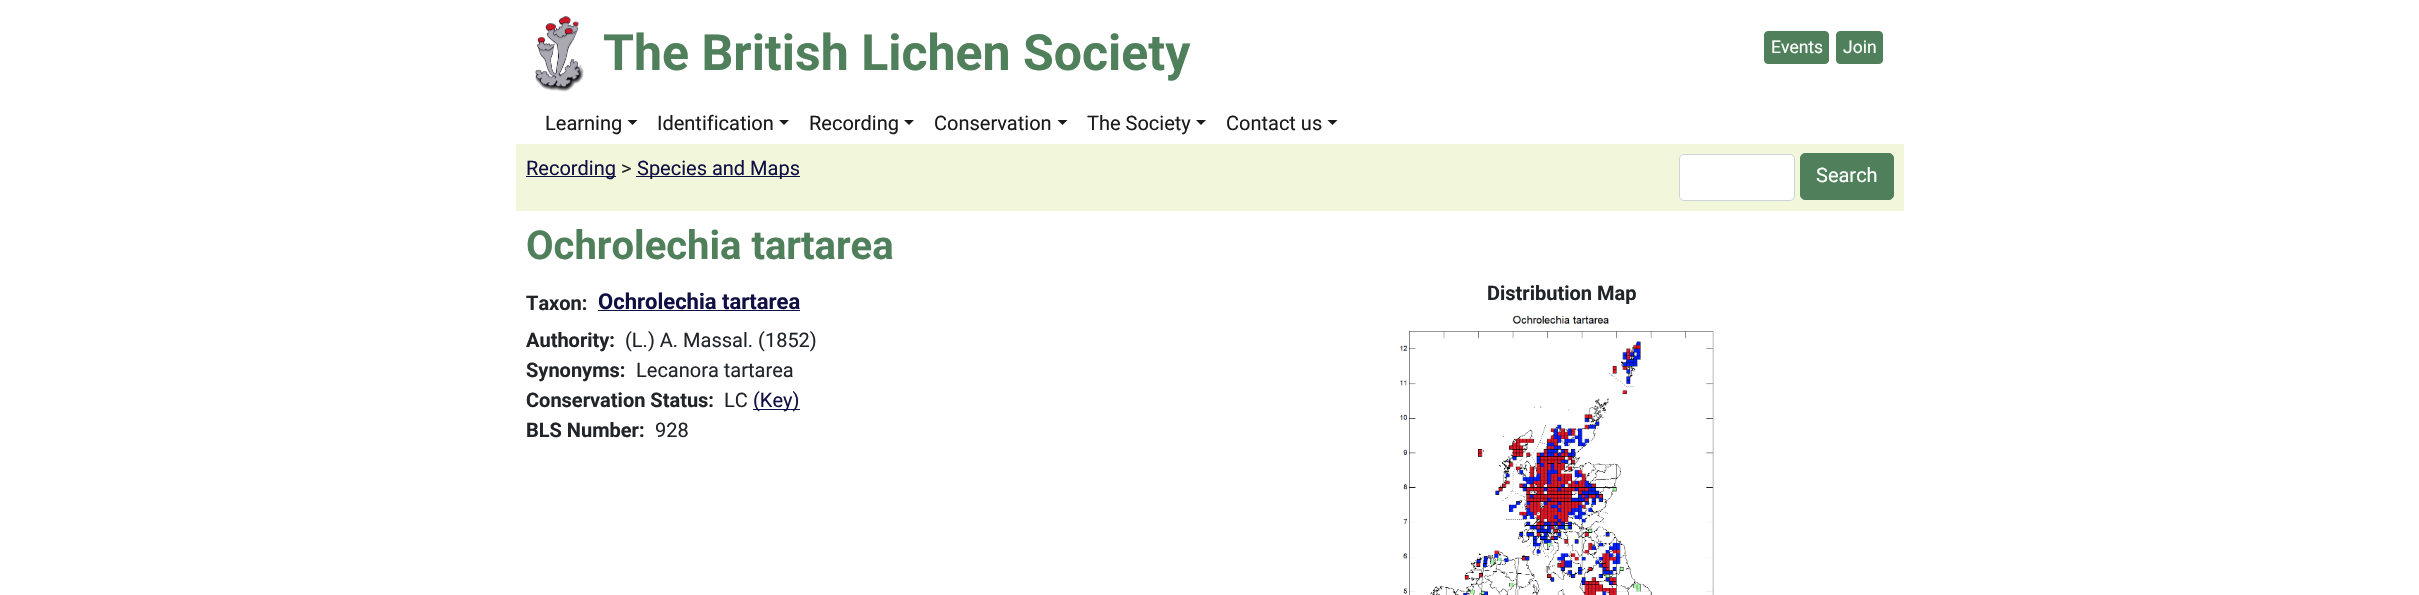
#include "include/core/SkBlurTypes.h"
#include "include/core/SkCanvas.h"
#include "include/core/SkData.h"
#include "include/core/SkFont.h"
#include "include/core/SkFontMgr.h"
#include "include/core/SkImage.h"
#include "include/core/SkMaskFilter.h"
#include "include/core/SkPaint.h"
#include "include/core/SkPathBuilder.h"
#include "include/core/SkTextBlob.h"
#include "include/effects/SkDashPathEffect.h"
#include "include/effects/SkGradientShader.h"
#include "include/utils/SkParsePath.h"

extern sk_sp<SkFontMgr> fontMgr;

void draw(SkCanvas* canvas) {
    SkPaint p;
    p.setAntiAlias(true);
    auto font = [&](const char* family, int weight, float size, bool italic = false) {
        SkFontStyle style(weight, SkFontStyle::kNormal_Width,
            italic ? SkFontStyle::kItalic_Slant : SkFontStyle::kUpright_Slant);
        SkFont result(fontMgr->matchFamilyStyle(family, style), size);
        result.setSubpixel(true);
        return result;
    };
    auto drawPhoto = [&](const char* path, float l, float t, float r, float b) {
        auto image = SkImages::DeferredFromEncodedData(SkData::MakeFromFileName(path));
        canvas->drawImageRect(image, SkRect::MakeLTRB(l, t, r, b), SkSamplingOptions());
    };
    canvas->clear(0xFFFFFFFF);
    drawPhoto("media/1.png", 535, 16, 584, 92);
    auto font1 = font("Roboto", 700, 50);
    p.setColor(0xFF4F7F5B);
    canvas->drawString("The British Lichen Society", 603, 70, font1, p);
    canvas->drawRoundRect(SkRect::MakeLTRB(1764.5f, 31.5f, 1828.5f, 63.5f), 3.5f, 3.5f, p);
    p.setStyle(SkPaint::kStroke_Style);
    p.setStrokeWidth(1);
    canvas->drawRoundRect(SkRect::MakeLTRB(1764.5f, 31.5f, 1828.5f, 63.5f), 3.5f, 3.5f, p);
    auto font2 = font("Roboto", 400, 17.5f);
    p.setStyle(SkPaint::kFill_Style);
    p.setColor(0xFFFFFFFF);
    canvas->drawString("Events", 1771, 53, font2, p);
    p.setColor(0xFF4F7F5B);
    canvas->drawRoundRect(SkRect::MakeLTRB(1836.5f, 31.5f, 1882.5f, 63.5f), 3.5f, 3.5f, p);
    p.setStyle(SkPaint::kStroke_Style);
    canvas->drawRoundRect(SkRect::MakeLTRB(1836.5f, 31.5f, 1882.5f, 63.5f), 3.5f, 3.5f, p);
    p.setStyle(SkPaint::kFill_Style);
    p.setColor(0xFFFFFFFF);
    canvas->drawString("Join", 1843, 53, font2, p);
    auto font3 = font("Roboto", 400, 20);
    p.setColor(0xFF1A1A1A);
    canvas->drawString("Learning", 545, 130, font3, p);
    canvas->drawPath(SkPathBuilder().moveTo(627.5f, 120).lineTo(637.5f, 120).lineTo(632.5f, 125).close().detach(), p);
    canvas->drawString("Identification", 657, 130, font3, p);
    canvas->drawPath(SkPathBuilder().moveTo(779, 120).lineTo(789, 120).lineTo(784, 125).close().detach(), p);
    canvas->drawString("Recording", 809, 130, font3, p);
    canvas->drawPath(SkPathBuilder().moveTo(904, 120).lineTo(914, 120).lineTo(909, 125).close().detach(), p);
    canvas->drawString("Conservation", 934, 130, font3, p);
    canvas->drawPath(SkPathBuilder().moveTo(1057.5f, 120).lineTo(1067.5f, 120).lineTo(1062.5f, 125).close().detach(), p);
    canvas->drawString("The Society", 1087, 130, font3, p);
    canvas->drawPath(SkPathBuilder().moveTo(1196, 120).lineTo(1206, 120).lineTo(1201, 125).close().detach(), p);
    canvas->drawString("Contact us", 1226, 130, font3, p);
    canvas->drawPath(SkPathBuilder().moveTo(1327.5f, 120).lineTo(1337.5f, 120).lineTo(1332.5f, 125).close().detach(), p);
    p.setColor(0xFFF2F7DC);
    canvas->drawRect(SkRect::MakeLTRB(516, 144, 1904, 211), p);
    p.setColor(0xFF101044);
    canvas->drawRect(SkRect::MakeLTRB(526, 176, 616, 177), p);
    canvas->drawString("Recording", 526, 175, font3, p);
    p.setColor(0xFF212529);
    canvas->drawString(">", 621, 175, font3, p);
    p.setColor(0xFF101044);
    canvas->drawRect(SkRect::MakeLTRB(636, 176, 800, 177), p);
    canvas->drawString("Species and Maps", 637, 175, font3, p);
    p.setColor(0xFFFFFFFF);
    canvas->drawRoundRect(SkRect::MakeLTRB(1679.5f, 154.5f, 1794.5f, 200.5f), 4.5f, 4.5f, p);
    p.setStyle(SkPaint::kStroke_Style);
    p.setColor(0xFFCED4DA);
    canvas->drawRoundRect(SkRect::MakeLTRB(1679.5f, 154.5f, 1794.5f, 200.5f), 4.5f, 4.5f, p);
    p.setStyle(SkPaint::kFill_Style);
    p.setColor(0xFF4F7F5B);
    canvas->drawRoundRect(SkRect::MakeLTRB(1800.5f, 153.5f, 1893.5f, 199.5f), 4.5f, 4.5f, p);
    p.setStyle(SkPaint::kStroke_Style);
    canvas->drawRoundRect(SkRect::MakeLTRB(1800.5f, 153.5f, 1893.5f, 199.5f), 4.5f, 4.5f, p);
    p.setStyle(SkPaint::kFill_Style);
    p.setColor(0xFFFFFFFF);
    canvas->drawString("Search", 1816, 182, font3, p);
    auto font4 = font("Roboto", 700, 40);
    p.setColor(0xFF4F7F5B);
    canvas->drawString("Ochrolechia tartarea", 526, 259, font4, p);
    auto font5 = font("Roboto", 700, 22);
    p.setColor(0xFF101044);
    canvas->drawString("Ochrolechia tartarea", 598, 309, font5, p);
    canvas->drawRect(SkRect::MakeLTRB(598, 310, 800, 311), p);
    auto font6 = font("Roboto", 700, 20);
    p.setColor(0xFF212529);
    canvas->drawString("Authority:", 526, 347, font6, p);
    canvas->drawString("(L.) A. Massal. (1852)", 625, 347, font3, p);
    canvas->drawString("Synonyms:", 526, 377, font6, p);
    canvas->drawString("Lecanora tartarea", 636, 377, font3, p);
    canvas->drawString("Conservation Status:", 526, 407, font6, p);
    canvas->drawString("LC", 724, 407, font3, p);
    p.setColor(0xFF101044);
    canvas->drawRect(SkRect::MakeLTRB(753, 409, 800, 410), p);
    canvas->drawString("(Key)", 753, 407, font3, p);
    p.setColor(0xFF212529);
    canvas->drawString("BLS Number:", 526, 437, font6, p);
    canvas->drawString("928", 655, 437, font3, p);
    canvas->drawString("Taxon:", 526, 310, font6, p);
    canvas->drawString("Distribution Map", 1487, 300, font6, p);
    drawPhoto("media/2.png", 1400, 315, 1714, 595);
}
